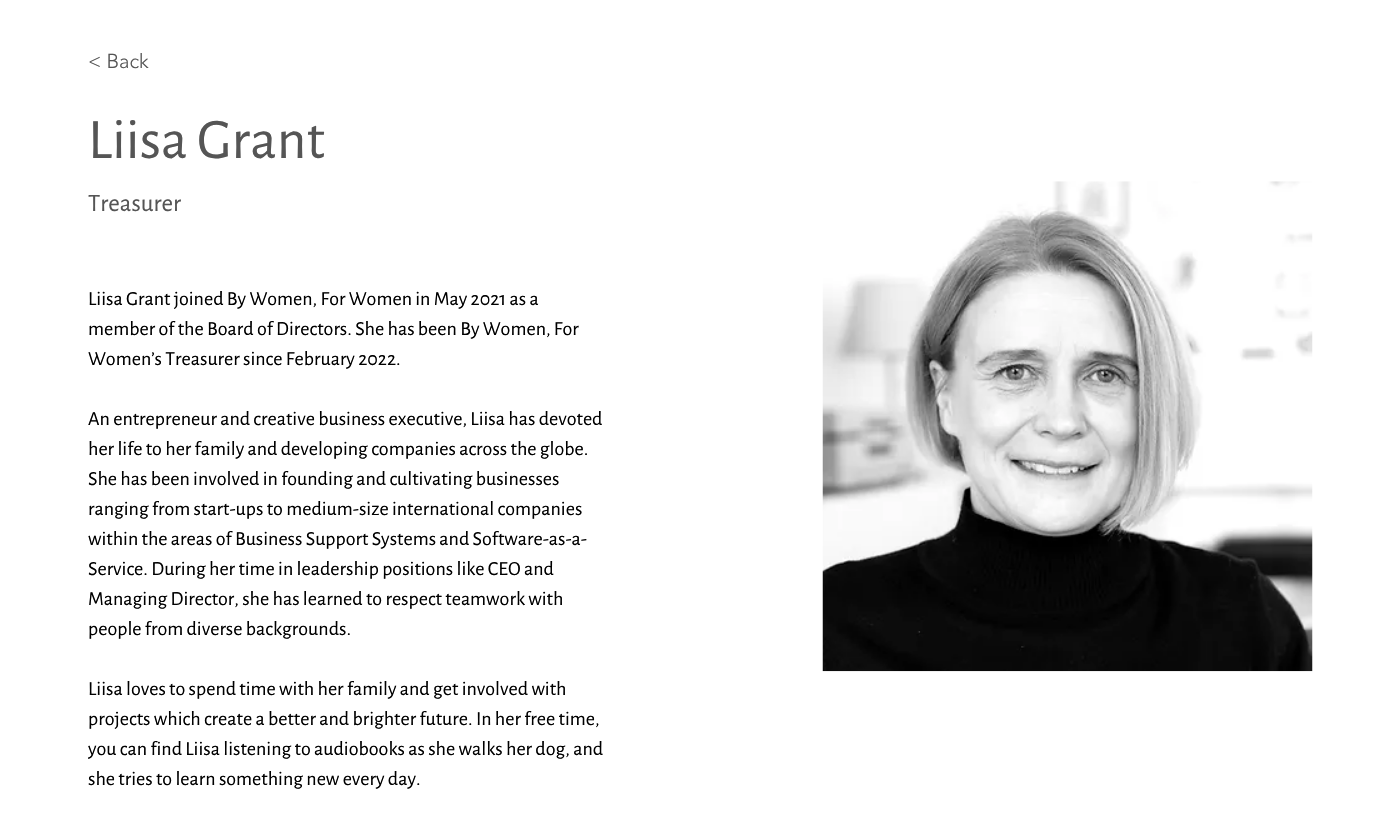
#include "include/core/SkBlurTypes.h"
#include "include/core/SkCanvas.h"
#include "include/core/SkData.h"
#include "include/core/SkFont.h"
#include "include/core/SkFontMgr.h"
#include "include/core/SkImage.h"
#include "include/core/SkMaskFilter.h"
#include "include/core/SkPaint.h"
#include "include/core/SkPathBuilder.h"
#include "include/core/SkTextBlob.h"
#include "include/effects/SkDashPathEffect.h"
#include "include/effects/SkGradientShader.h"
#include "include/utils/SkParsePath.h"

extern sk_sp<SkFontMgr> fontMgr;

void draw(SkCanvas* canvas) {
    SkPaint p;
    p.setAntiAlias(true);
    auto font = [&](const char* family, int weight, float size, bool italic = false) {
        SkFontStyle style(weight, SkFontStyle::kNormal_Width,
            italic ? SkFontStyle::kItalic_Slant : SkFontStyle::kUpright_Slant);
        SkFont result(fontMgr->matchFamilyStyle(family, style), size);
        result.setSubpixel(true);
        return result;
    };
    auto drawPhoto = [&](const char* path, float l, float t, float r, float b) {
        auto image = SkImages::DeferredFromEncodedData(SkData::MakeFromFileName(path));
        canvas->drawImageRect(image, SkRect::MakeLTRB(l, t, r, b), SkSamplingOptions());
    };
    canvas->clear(0xFFFFFFFF);
    auto font1 = font("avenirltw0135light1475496", 300, 20);
    p.setColor(0xFF555555);
    canvas->drawString("< Back", 88, 68, font1, p);
    auto font2 = font("Alegreya Sans", 400, 57.5f);
    canvas->drawString("Liisa Grant", 88, 158, font2, p);
    auto font3 = font("Alegreya Sans", 400, 25);
    canvas->drawString("Treasurer", 88, 211, font3, p);
    auto font4 = font("Alegreya Sans", 400, 20);
    p.setColor(0xFF000000);
    {
        const struct { const char* s; float x, y; } items[] = {
            {"Liisa Grant joined By Women, For Women in May 2021 as a", 88, 305},
            {"member of the Board of Directors. She has been By Women, For", 88, 335},
            {"Women’s Treasurer since February 2022.", 88, 365},
            {"An entrepreneur and creative business executive, Liisa has devoted", 88, 425},
            {"her life to her family and developing companies across the globe.", 88, 455},
            {"She has been involved in founding and cultivating businesses", 88, 485},
            {"ranging from start-ups to medium-size international companies", 88, 515},
            {"within the areas of Business Support Systems and Software-as-a-", 88, 545},
            {"Service. During her time in leadership positions like CEO and", 88, 575},
            {"Managing Director, she has learned to respect teamwork with", 88, 605},
            {"people from diverse backgrounds.", 88, 635},
            {"Liisa loves to spend time with her family and get involved with", 88, 695},
            {"projects which create a better and brighter future. In her free time,", 88, 725},
        };
        for (auto [s, x, y] : items) {
            canvas->drawString(s, x, y, font4, p);
        }
    }
    canvas->save();
    canvas->clipRect(SkRect::MakeLTRB(88, 284, 605, 794));
    canvas->drawString("you can find Liisa listening to audiobooks as she walks her dog, and", 88, 755, font4, p);
    canvas->restore();
    canvas->drawString("she tries to learn something new every day.", 88, 785, font4, p);
    drawPhoto("media/1.png", 822, 181, 1313, 672);
}
